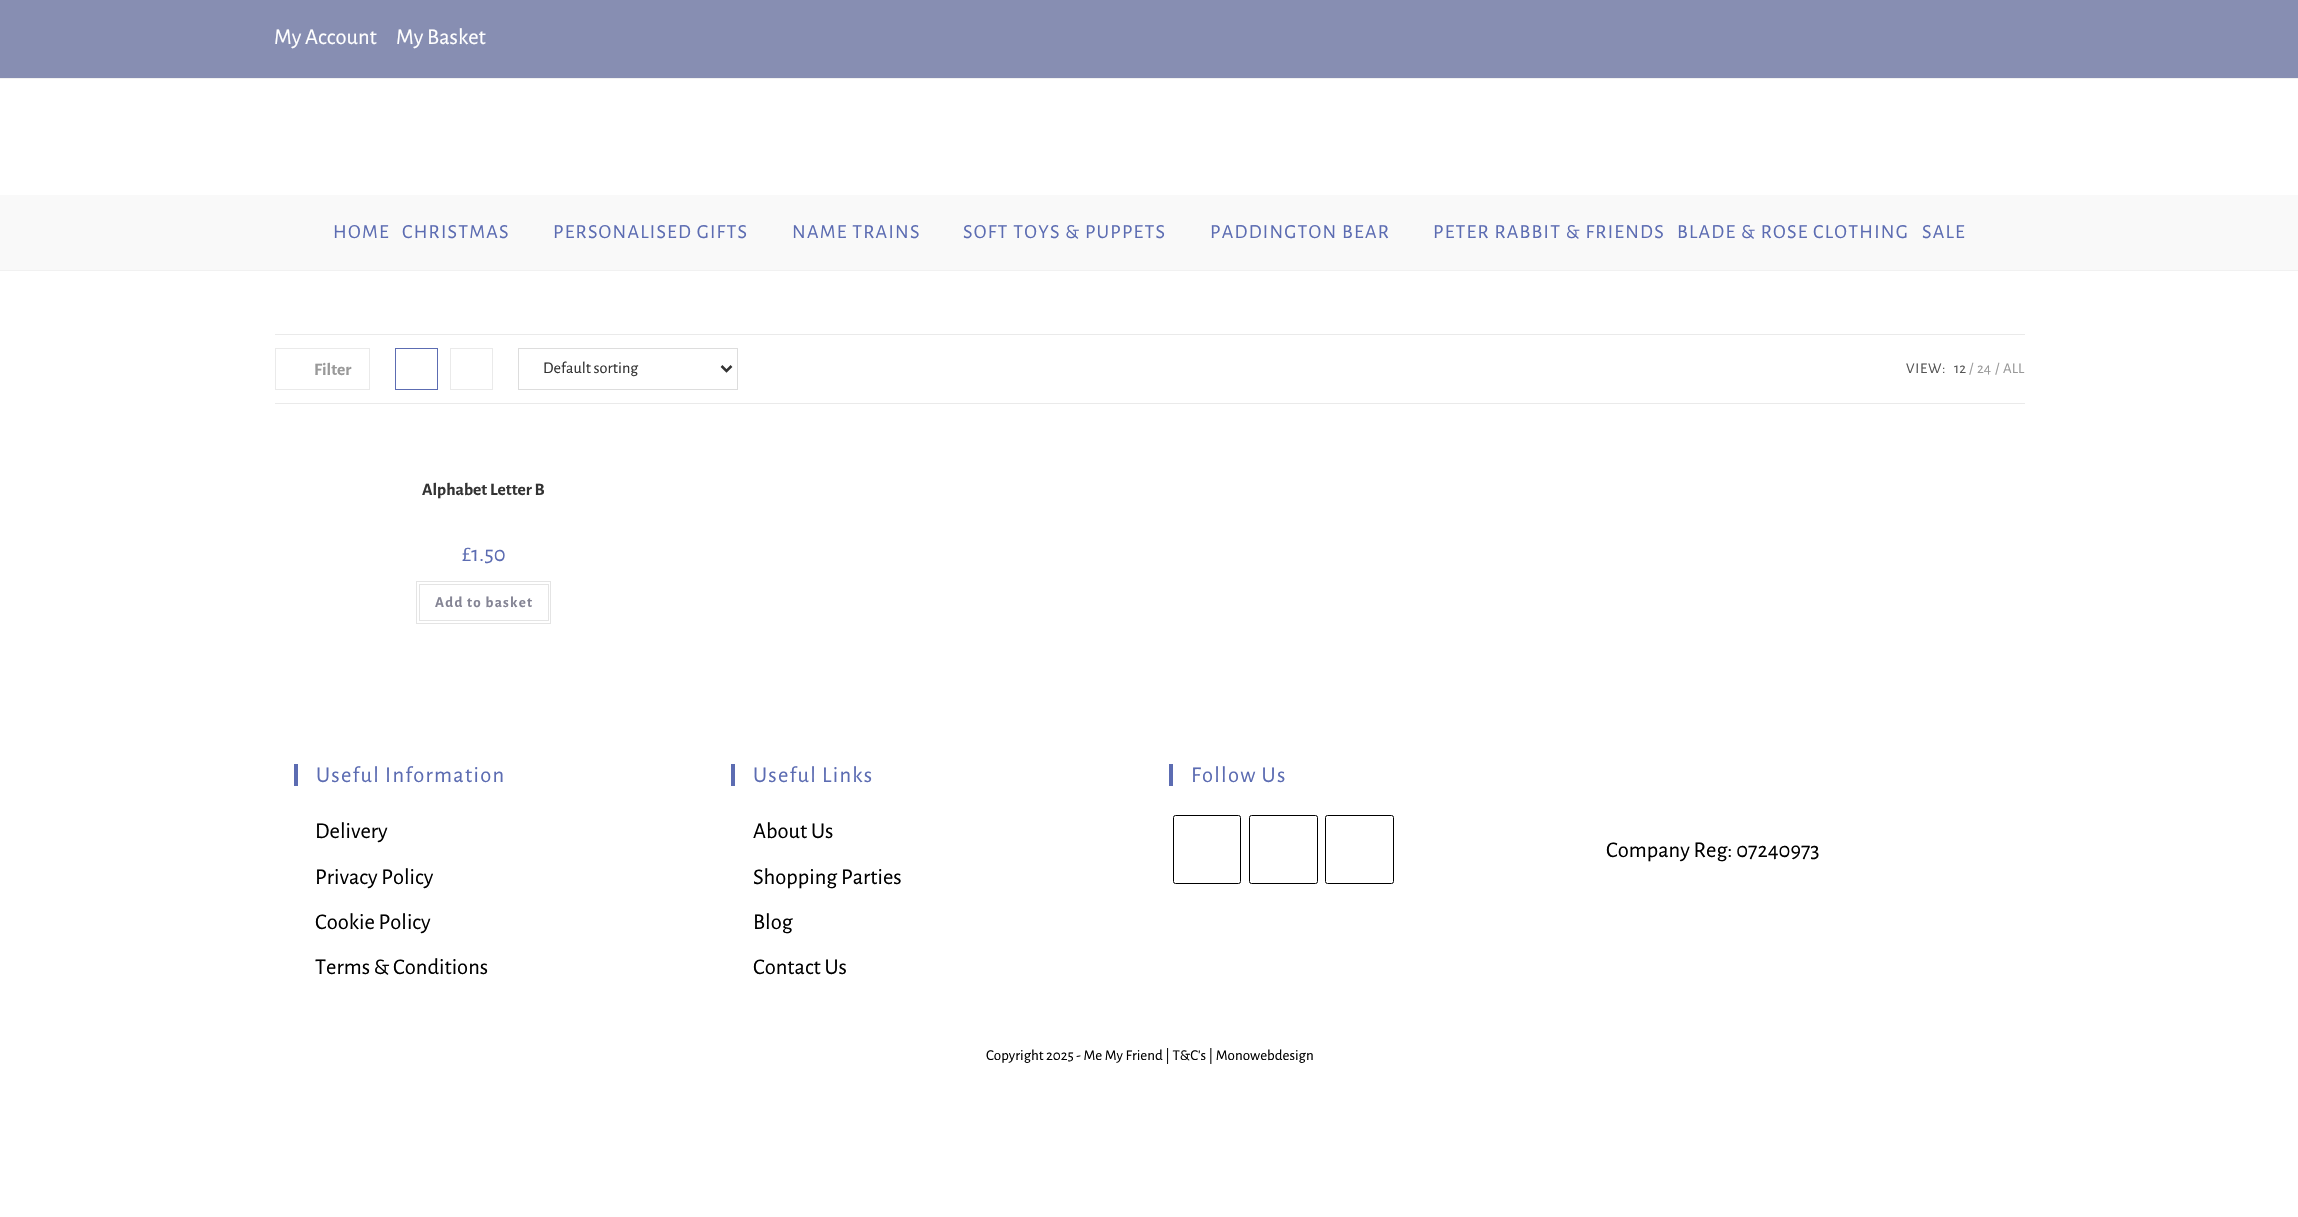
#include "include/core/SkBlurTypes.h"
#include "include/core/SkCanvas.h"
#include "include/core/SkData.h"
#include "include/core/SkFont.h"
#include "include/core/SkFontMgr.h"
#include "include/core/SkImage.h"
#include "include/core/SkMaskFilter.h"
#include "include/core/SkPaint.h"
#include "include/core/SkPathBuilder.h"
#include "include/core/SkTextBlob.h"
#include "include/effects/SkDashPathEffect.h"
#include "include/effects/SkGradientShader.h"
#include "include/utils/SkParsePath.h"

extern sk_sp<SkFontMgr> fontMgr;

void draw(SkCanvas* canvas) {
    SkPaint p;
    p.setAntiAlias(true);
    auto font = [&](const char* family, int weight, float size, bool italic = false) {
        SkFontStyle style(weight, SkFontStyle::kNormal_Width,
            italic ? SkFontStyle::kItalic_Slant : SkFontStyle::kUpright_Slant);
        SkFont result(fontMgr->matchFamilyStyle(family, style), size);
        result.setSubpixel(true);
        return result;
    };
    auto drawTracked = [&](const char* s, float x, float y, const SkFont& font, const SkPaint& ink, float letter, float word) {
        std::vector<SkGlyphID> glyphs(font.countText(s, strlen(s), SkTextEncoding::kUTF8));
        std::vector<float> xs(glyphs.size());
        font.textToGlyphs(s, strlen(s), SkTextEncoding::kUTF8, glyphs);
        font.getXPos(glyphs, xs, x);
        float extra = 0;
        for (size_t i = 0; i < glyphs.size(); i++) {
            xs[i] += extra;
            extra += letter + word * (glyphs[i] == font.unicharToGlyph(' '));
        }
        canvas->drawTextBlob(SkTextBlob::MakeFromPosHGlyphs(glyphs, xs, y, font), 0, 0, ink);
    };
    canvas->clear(0xFFFFFFFF);
    p.setColor(0xFF878EB2);
    canvas->drawRect(SkRect::MakeLTRB(0, 0, 2298, 78), p);
    p.setColor(0xFFF1F1F1);
    canvas->drawRect(SkRect::MakeLTRB(0, 78, 2298, 79), p);
    auto font1 = font("Alegreya Sans", 400, 22.5f);
    p.setColor(0xFFFFFFFF);
    canvas->drawString("My Account", 274, 44, font1, p);
    canvas->drawString("My Basket", 396, 44, font1, p);
    p.setColor(0xFFF1F1F1);
    canvas->drawRect(SkRect::MakeLTRB(0, 270, 2298, 271), p);
    p.setColor(0xFFF9F9F9);
    canvas->drawRect(SkRect::MakeLTRB(0, 195, 2298, 270), p);
    auto font2 = font("Alegreya Sans", 400, 20);
    p.setColor(0xFF5C6CB2);
    {
        const struct { const char* s; float x, y; } items[] = {
            {"HOME", 333, 238},
            {"CHRISTMAS", 402, 238},
            {"PERSONALISED GIFTS", 553, 238},
            {"NAME TRAINS", 792, 238},
            {"SOFT TOYS & PUPPETS", 963, 238},
            {"PADDINGTON BEAR", 1210, 238},
            {"PETER RABBIT & FRIENDS", 1433, 238},
            {"BLADE & ROSE CLOTHING", 1677, 238},
            {"SALE", 1922, 238},
        };
        for (auto [s, x, y] : items) {
            drawTracked(s, x, y, font2, p, 1.25f, 0);
        }
    }
    p.setColor(0xFFEAEAEA);
    canvas->drawRect(SkRect::MakeLTRB(275, 334, 2025, 335), p);
    canvas->drawRect(SkRect::MakeLTRB(275, 403, 2025, 404), p);
    p.setStyle(SkPaint::kStroke_Style);
    p.setStrokeWidth(1);
    canvas->drawRect(SkRect::MakeLTRB(275.5f, 348.5f, 369.5f, 389.5f), p);
    auto font3 = font("Alegreya Sans", 700, 17.5f);
    p.setStyle(SkPaint::kFill_Style);
    p.setColor(0xFF999999);
    canvas->drawString("Filter", 314, 375, font3, p);
    p.setStyle(SkPaint::kStroke_Style);
    p.setColor(0xFF5C6CB2);
    canvas->drawRect(SkRect::MakeLTRB(395.5f, 348.5f, 437.5f, 389.5f), p);
    p.setColor(0xFFEAEAEA);
    canvas->drawRect(SkRect::MakeLTRB(450.5f, 348.5f, 492.5f, 389.5f), p);
    p.setColor(0xFFDDDDDD);
    canvas->drawRect(SkRect::MakeLTRB(518.5f, 348.5f, 737.5f, 389.5f), p);
    p.setStrokeWidth(2.5f);
    p.setColor(0xFF333333);
    canvas->drawPath(SkPathBuilder().moveTo(721.5f, 366).lineTo(726.5f, 371).lineTo(731.5f, 366).detach(), p);
    auto font4 = font("Alegreya Sans", 400, 16.25f);
    p.setStyle(SkPaint::kFill_Style);
    canvas->drawString("Default sorting", 543, 373, font4, p);
    auto font5 = font("Alegreya Sans", 400, 15);
    p.setColor(0xFF555555);
    drawTracked("VIEW:", 1906, 373, font5, p, 0.75f, 0);
    canvas->drawString("12", 1954, 373, font5, p);
    p.setColor(0xFF999999);
    {
        const struct { const char* s; float x, y; } items[] = {
            {"/", 1969, 373},
            {"24", 1977, 373},
            {"/", 1995, 373},
            {"ALL", 2003, 373},
        };
        for (auto [s, x, y] : items) {
            canvas->drawString(s, x, y, font5, p);
        }
    }
    p.setColor(0xFF333333);
    canvas->drawString("Alphabet Letter B", 422, 495, font3, p);
    p.setColor(0xFF5C6CB2);
    canvas->drawString("£1.50", 462, 561, font1, p);
    p.setStyle(SkPaint::kStroke_Style);
    p.setStrokeWidth(1);
    p.setColor(0xFFE4E4E4);
    canvas->drawRect(SkRect::MakeLTRB(416.5f, 581.5f, 550.5f, 623.5f), p);
    canvas->drawRect(SkRect::MakeLTRB(419.5f, 584.5f, 548.5f, 620.5f), p);
    auto font6 = font("Alegreya Sans", 700, 15);
    p.setStyle(SkPaint::kFill_Style);
    p.setColor(0xFF848494);
    drawTracked("Add to basket", 435, 607, font6, p, 1.25f, 0);
    p.setColor(0xFF5C6CB2);
    canvas->drawRect(SkRect::MakeLTRB(294, 764, 298, 786), p);
    drawTracked("Useful Information", 316, 782, font1, p, 1.25f, 0);
    p.setColor(0xFF000000);
    {
        const struct { const char* s; float x, y; } items[] = {
            {"Delivery", 315, 838},
            {"Privacy Policy", 315, 884},
            {"Cookie Policy", 315, 929},
            {"Terms & Conditions", 315, 974},
        };
        for (auto [s, x, y] : items) {
            canvas->drawString(s, x, y, font1, p);
        }
    }
    p.setColor(0xFF5C6CB2);
    canvas->drawRect(SkRect::MakeLTRB(731, 764, 735, 786), p);
    drawTracked("Useful Links", 753, 782, font1, p, 1.25f, 0);
    p.setColor(0xFF000000);
    {
        const struct { const char* s; float x, y; } items[] = {
            {"About Us", 753, 838},
            {"Shopping Parties", 753, 884},
            {"Blog", 753, 929},
            {"Contact Us", 753, 974},
        };
        for (auto [s, x, y] : items) {
            canvas->drawString(s, x, y, font1, p);
        }
    }
    p.setColor(0xFF5C6CB2);
    canvas->drawRect(SkRect::MakeLTRB(1169, 764, 1173, 786), p);
    drawTracked("Follow Us", 1191, 782, font1, p, 1.25f, 0);
    p.setStyle(SkPaint::kStroke_Style);
    p.setColor(0xFF000000);
    canvas->drawRoundRect(SkRect::MakeLTRB(1173.5f, 815.5f, 1240.5f, 883.5f), 2, 2, p);
    canvas->drawRoundRect(SkRect::MakeLTRB(1249.5f, 815.5f, 1317.5f, 883.5f), 2, 2, p);
    canvas->drawRoundRect(SkRect::MakeLTRB(1325.5f, 815.5f, 1393.5f, 883.5f), 2, 2, p);
    p.setStyle(SkPaint::kFill_Style);
    canvas->drawString("Company Reg: 07240973", 1606, 857, font1, p);
    canvas->drawString("Copyright 2025 - Me My Friend | T&C's | Monowebdesign", 986, 1060, font5, p);
}
